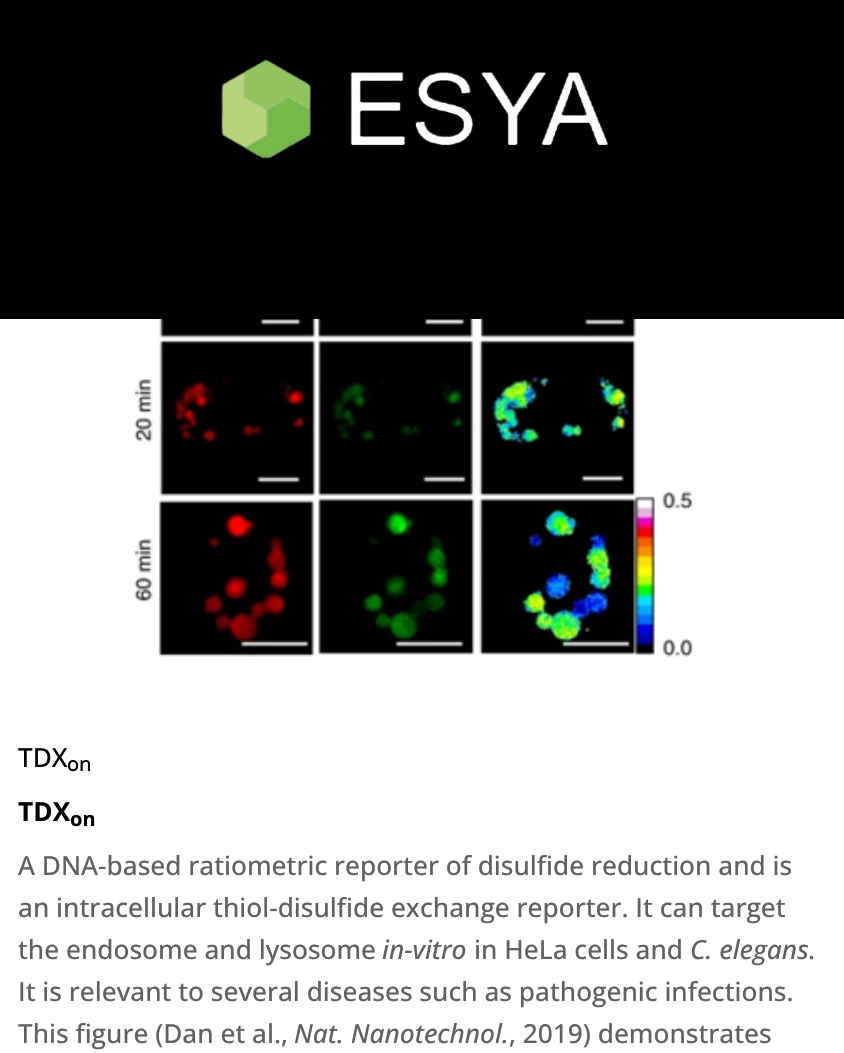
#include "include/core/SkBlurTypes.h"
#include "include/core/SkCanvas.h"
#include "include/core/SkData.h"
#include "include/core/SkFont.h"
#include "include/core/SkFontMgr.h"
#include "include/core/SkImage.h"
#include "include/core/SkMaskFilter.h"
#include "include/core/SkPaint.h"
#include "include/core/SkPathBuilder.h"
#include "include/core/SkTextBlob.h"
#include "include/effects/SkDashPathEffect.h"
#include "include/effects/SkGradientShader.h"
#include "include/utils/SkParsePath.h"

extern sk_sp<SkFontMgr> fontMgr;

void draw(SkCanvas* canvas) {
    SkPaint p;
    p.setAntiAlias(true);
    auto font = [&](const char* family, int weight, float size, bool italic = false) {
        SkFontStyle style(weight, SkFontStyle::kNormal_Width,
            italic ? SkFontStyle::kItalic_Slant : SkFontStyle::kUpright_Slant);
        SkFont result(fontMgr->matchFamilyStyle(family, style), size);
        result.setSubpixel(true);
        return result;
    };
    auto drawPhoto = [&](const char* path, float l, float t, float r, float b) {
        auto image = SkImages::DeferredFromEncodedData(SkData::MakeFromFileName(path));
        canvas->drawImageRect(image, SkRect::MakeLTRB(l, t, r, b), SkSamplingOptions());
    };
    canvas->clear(0xFFFFFFFF);
    p.setColor(0xFF000000);
    canvas->drawRect(SkRect::MakeLTRB(0, 0, 844, 319), p);
    drawPhoto("media/1.png", 221, 59, 609, 159);
    drawPhoto("media/2.png", 134, 319, 694, 657);
    auto font1 = font("Open Sans", 500, 26.25f);
    canvas->drawString("TDX", 18, 767, font1, p);
    auto font2 = font("Open Sans", 500, 20);
    canvas->drawString("on", 67, 771, font2, p);
    auto font3 = font("Open Sans", 700, 26.25f);
    canvas->drawString("TDX", 18, 821, font3, p);
    auto font4 = font("Open Sans", 700, 20);
    canvas->drawString("on", 70, 826, font4, p);
    p.setColor(0xFF606060);
    {
        const struct { const char* s; float x, y; } items[] = {
            {"A DNA-based ratiometric reporter of disulfide reduction and is", 18, 875},
            {"an intracellular thiol-disulfide exchange reporter. It can target", 18, 917},
            {"the endosome and lysosome", 18, 959},
        };
        for (auto [s, x, y] : items) {
            canvas->drawString(s, x, y, font1, p);
        }
    }
    auto font5 = font("Open Sans", 500, 26.25f, true);
    canvas->drawString("in-vitro", 382, 959, font5, p);
    canvas->drawString("in HeLa cells and", 474, 959, font1, p);
    canvas->drawString("C. elegans", 690, 959, font5, p);
    {
        const struct { const char* s; float x, y; } items[] = {
            {".", 808, 959},
            {"It is relevant to several diseases such as pathogenic infections.", 18, 1001},
            {"This figure (Dan et al.,", 18, 1043},
        };
        for (auto [s, x, y] : items) {
            canvas->drawString(s, x, y, font1, p);
        }
    }
    canvas->drawString("Nat. Nanotechnol.", 294, 1043, font5, p);
    canvas->drawString(", 2019) demonstrates", 509, 1043, font1, p);
}
